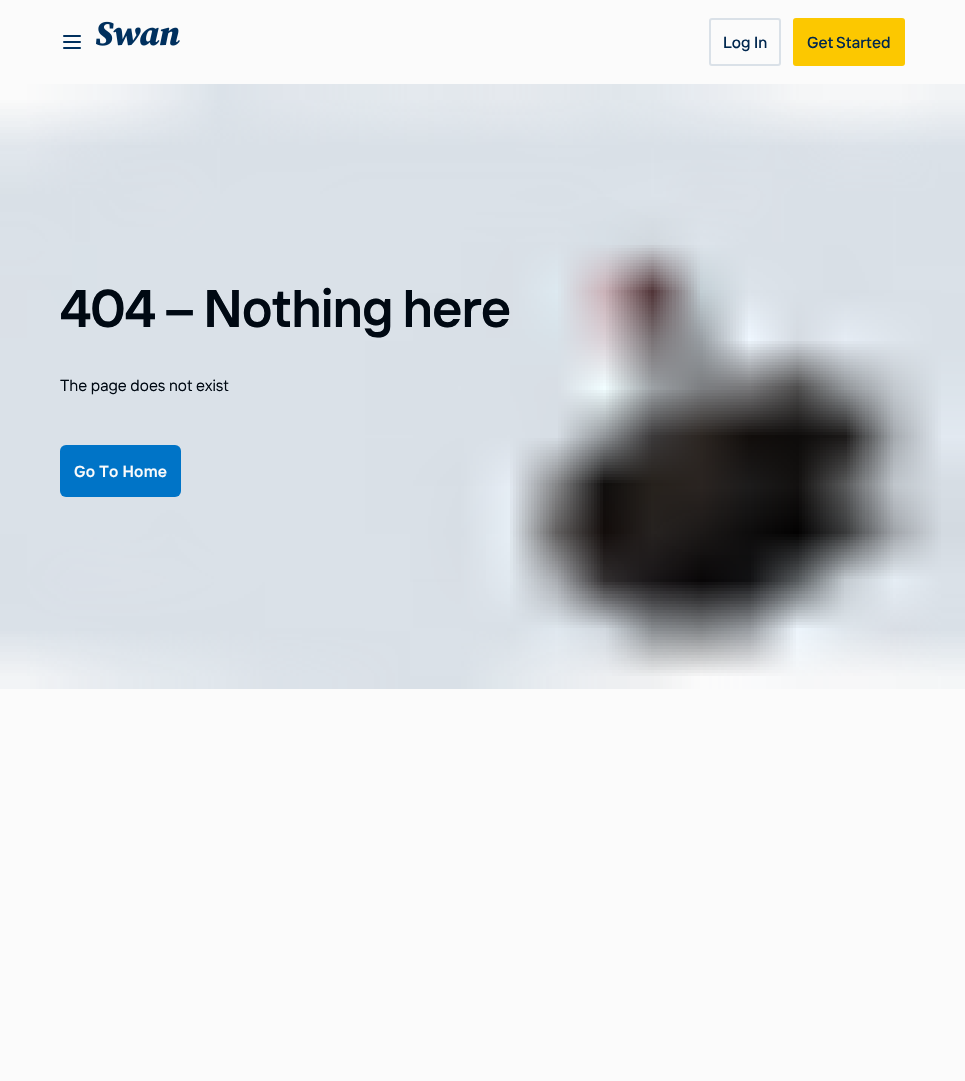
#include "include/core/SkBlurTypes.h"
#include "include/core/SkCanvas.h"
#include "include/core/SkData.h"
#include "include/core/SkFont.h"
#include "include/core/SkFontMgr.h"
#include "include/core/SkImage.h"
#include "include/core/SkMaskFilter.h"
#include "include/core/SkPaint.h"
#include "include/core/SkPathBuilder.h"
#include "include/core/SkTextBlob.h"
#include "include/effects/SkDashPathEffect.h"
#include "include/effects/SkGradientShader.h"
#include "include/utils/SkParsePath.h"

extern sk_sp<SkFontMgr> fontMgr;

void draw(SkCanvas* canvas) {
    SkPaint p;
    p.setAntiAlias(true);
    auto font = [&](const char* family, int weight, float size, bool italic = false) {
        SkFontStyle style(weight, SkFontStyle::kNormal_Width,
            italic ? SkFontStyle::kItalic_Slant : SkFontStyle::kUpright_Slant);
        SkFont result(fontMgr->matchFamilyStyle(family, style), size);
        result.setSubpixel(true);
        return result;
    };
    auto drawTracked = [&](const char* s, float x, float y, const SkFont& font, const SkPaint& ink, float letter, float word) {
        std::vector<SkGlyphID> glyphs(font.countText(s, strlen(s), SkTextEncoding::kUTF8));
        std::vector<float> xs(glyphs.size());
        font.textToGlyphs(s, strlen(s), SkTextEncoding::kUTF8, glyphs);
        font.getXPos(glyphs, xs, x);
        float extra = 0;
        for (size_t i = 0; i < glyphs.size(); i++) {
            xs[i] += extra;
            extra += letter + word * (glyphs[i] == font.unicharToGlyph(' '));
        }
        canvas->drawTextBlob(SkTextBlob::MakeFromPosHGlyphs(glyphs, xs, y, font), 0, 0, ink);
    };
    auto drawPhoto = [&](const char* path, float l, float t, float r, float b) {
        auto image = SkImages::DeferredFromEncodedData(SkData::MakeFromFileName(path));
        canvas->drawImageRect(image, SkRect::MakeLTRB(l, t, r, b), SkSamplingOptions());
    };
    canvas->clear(0xFFFBFBFB);
    drawPhoto("media/1.png", 63, 35, 81, 49);
    drawPhoto("media/2.png", 96, 21, 180, 46);
    p.setStyle(SkPaint::kStroke_Style);
    p.setStrokeWidth(2);
    p.setColor(0xFFDAE1E8);
    canvas->drawRoundRect(SkRect::MakeLTRB(710, 19, 780, 65), 2, 2, p);
    auto font1 = font("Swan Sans", 500, 16);
    p.setStyle(SkPaint::kFill_Style);
    p.setColor(0xFF00274F);
    canvas->drawString("Log In", 723, 48, font1, p);
    p.setColor(0xFFFCC800);
    canvas->drawRoundRect(SkRect::MakeLTRB(793, 18, 905, 66), 3, 3, p);
    p.setColor(0xFF00274F);
    drawTracked("Get Started", 807, 48, font1, p, 0, -1);
    drawPhoto("media/3.png", 0, 84, 965, 689);
    auto font2 = font("Swan Sans", 600, 53);
    p.setColor(0xFF000913);
    drawTracked("404 – Nothing here", 60, 327, font2, p, -1.1f, -1);
    auto font3 = font("Swan Sans", 400, 16);
    canvas->drawString("The page does not exist", 60, 391, font3, p);
    p.setColor(0xFF0074C7);
    canvas->drawRoundRect(SkRect::MakeLTRB(60, 445, 181, 497), 6, 6, p);
    auto font4 = font("Swan Sans", 600, 16);
    p.setColor(0xFFFBFBFB);
    drawTracked("Go To Home", 74, 477, font4, p, 0.25f, 0);
}
